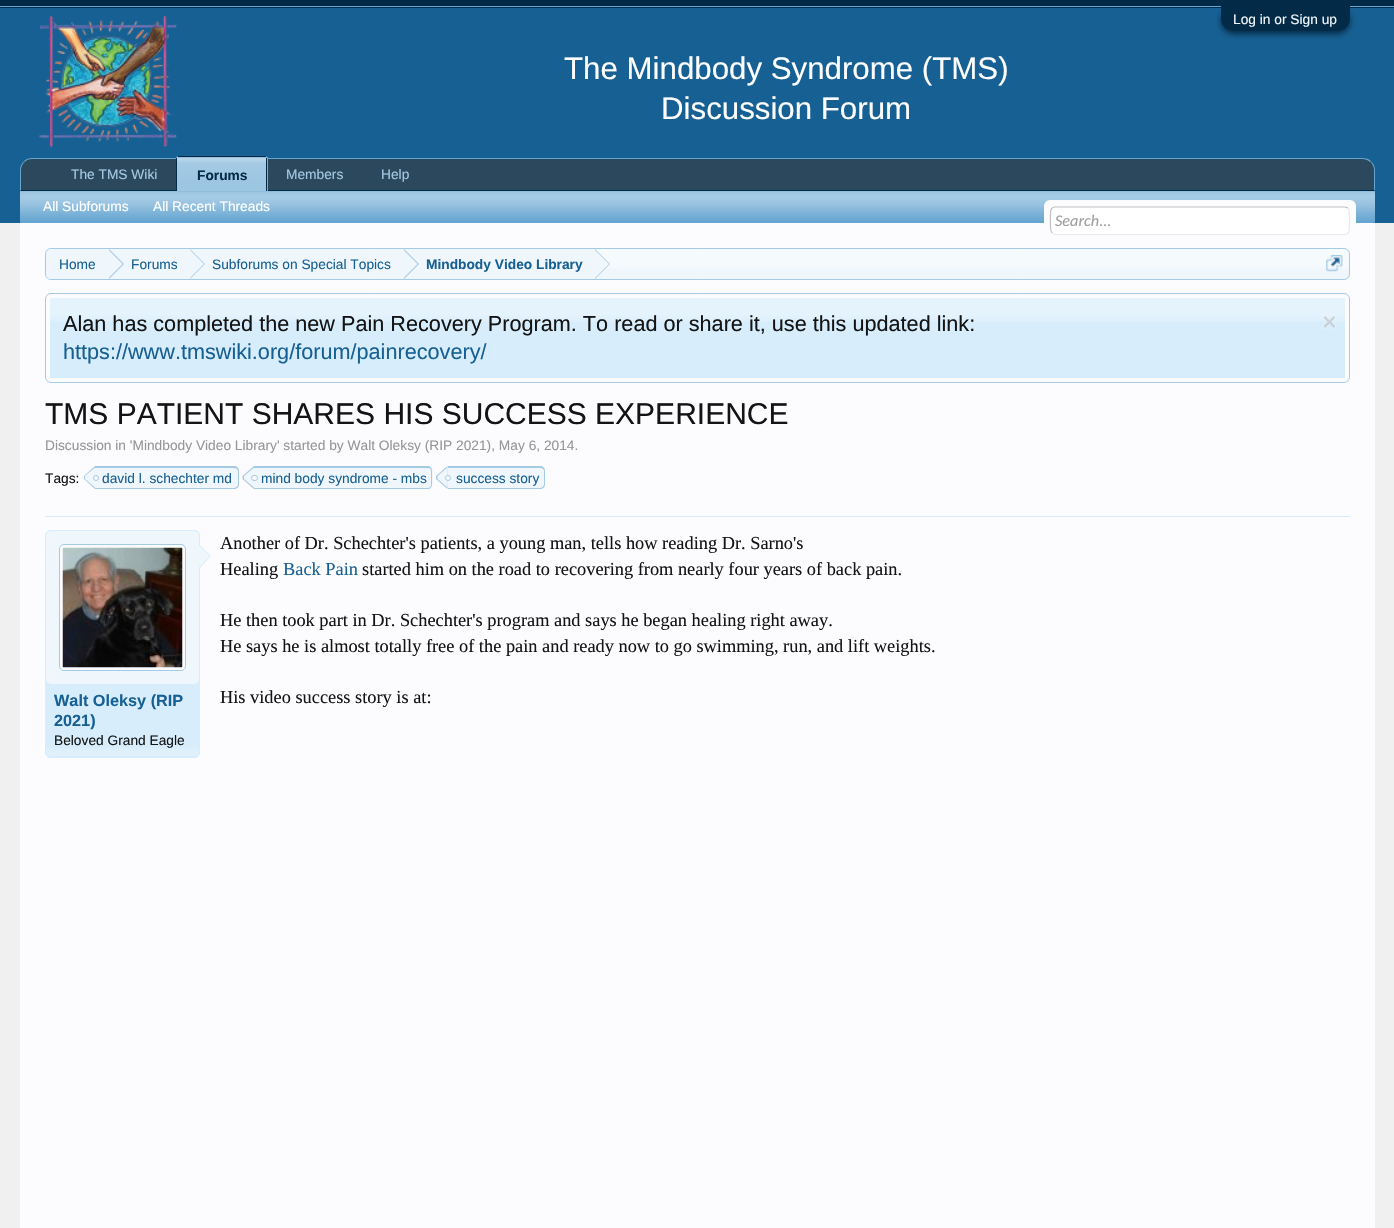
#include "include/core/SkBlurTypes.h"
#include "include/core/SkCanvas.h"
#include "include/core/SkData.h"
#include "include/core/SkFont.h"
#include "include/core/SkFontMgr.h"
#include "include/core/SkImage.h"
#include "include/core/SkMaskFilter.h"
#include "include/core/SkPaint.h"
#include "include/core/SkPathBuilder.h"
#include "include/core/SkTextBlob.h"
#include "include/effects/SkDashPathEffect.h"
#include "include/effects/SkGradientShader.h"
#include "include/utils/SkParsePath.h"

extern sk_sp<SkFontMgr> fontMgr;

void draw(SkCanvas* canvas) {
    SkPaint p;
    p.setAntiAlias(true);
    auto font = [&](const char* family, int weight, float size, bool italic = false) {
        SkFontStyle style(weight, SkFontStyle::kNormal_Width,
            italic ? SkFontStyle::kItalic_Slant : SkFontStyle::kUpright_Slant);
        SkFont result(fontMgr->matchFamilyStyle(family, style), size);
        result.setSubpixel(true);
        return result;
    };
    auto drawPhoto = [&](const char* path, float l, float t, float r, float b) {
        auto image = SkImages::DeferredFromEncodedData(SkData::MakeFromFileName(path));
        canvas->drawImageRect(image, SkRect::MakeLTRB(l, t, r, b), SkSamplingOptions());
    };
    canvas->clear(0xFFF0F0F0);
    {
        const struct { float l, t, r, b; SkColor color; } items[] = {
            {0, 0, 1394, 8, 0xFF032A46},
            {0, 6, 1394, 7, 0xFF65A5D1},
            {0, 8, 1394, 223, 0xFF176093},
        };
        for (auto [l, t, r, b, color] : items) {
            p.setColor(color);
            canvas->drawRect(SkRect::MakeLTRB(l, t, r, b), p);
        }
    }
    p.setColor(0xFF032A46);
    p.setMaskFilter(SkMaskFilter::MakeBlur(kNormal_SkBlurStyle, 3));
    canvas->drawRoundRect(SkRect::MakeLTRB(1221, 9, 1350, 34), 12.5f, 12.5f, p);
    p.setMaskFilter(nullptr);
    canvas->drawPath(SkPathBuilder().moveTo(1221, 6).lineTo(1350, 6).lineTo(1350, 18.5f).cubicTo(1350, 25.5f, 1344.5f, 31, 1337.5f, 31).lineTo(1233.5f, 31).cubicTo(1226.5f, 31, 1221, 25.5f, 1221, 18.5f).close().detach(), p);
    auto font1 = font("Liberation Sans", 400, 13.75f);
    p.setColor(0xFFF0F7FC);
    canvas->drawString("Log in or Sign up", 1233, 24, font1, p);
    drawPhoto("media/1.png", 38, 16, 177, 148);
    auto font2 = font("Liberation Sans", 400, 31.25f);
    p.setColor(0xFFFFFFFF);
    canvas->drawString("The Mindbody Syndrome (TMS)", 564, 79, font2, p);
    canvas->drawString("Discussion Forum", 661, 119, font2, p);
    p.setColor(0xFF2B485C);
    canvas->drawPath(SkPathBuilder().moveTo(33, 158).lineTo(1362, 158).cubicTo(1369, 158, 1375, 164, 1375, 171).lineTo(1375, 191).lineTo(20, 191).lineTo(20, 171).cubicTo(20, 164, 26, 158, 33, 158).close().detach(), p);
    p.setColor(0xFF65A5D1);
    canvas->drawPath(SkPathBuilder().moveTo(32, 158).cubicTo(29, 158, 26, 159, 24, 161).lineTo(25, 162).cubicTo(26, 160, 29, 159, 32, 159).lineTo(1362, 159).cubicTo(1365, 159, 1368, 160, 1370, 162).lineTo(1371, 161).cubicTo(1369, 159, 1366, 158, 1362, 158).close().detach(), p);
    canvas->drawPath(SkPathBuilder().moveTo(1371, 161.5f).cubicTo(1373.5f, 163.5f, 1375, 166.5f, 1375, 170).lineTo(1375, 191).lineTo(1374, 190).lineTo(1374, 170).cubicTo(1374, 167, 1372.5f, 164, 1370.5f, 162).close().detach(), p);
    p.setColor(0xFF032A46);
    canvas->drawPath(SkPathBuilder().moveTo(1375, 191).lineTo(20, 191).lineTo(21, 190).lineTo(1374, 190).close().detach(), p);
    p.setColor(0xFF65A5D1);
    canvas->drawPath(SkPathBuilder().moveTo(20, 170).lineTo(20, 191).lineTo(21, 190).lineTo(21, 170).cubicTo(21, 167, 22.5f, 164, 24.5f, 162).lineTo(24, 161.5f).cubicTo(21.5f, 163.5f, 20, 166.5f, 20, 170).close().detach(), p);
    p.setColor(0xFFA5CAE4);
    {
        const struct { const char* s; float x, y; } items[] = {
            {"The TMS Wiki", 71, 179},
            {"Members", 286, 179},
            {"Help", 381, 179},
        };
        for (auto [s, x, y] : items) {
            canvas->drawString(s, x, y, font1, p);
        }
    }
    p.setColor(0xFF65A5D1);
    canvas->drawPath(SkPathBuilder().moveTo(178.5f, 156).lineTo(265.5f, 156).cubicTo(267, 156, 268, 157, 268, 158.5f).lineTo(268, 191).lineTo(176, 191).lineTo(176, 158.5f).cubicTo(176, 157, 177, 156, 178.5f, 156).close().detach(), p);
    drawPhoto("media/2.png", 176, 157, 268, 191);
    {
        const struct { float l, t, r, b; SkColor color; } items[] = {
            {178, 156, 266, 157, 0xFF032A46},
            {266, 158, 267, 191, 0xFF032A46},
            {176, 158, 177, 191, 0xFF032A46},
        };
        for (auto [l, t, r, b, color] : items) {
            p.setColor(color);
            canvas->drawRect(SkRect::MakeLTRB(l, t, r, b), p);
        }
    }
    auto font3 = font("Liberation Sans", 700, 13.75f);
    canvas->drawString("Forums", 197, 180, font3, p);
    p.setColor(0xFF65A5D1);
    canvas->drawRect(SkRect::MakeLTRB(20, 191, 1375, 223), p);
    drawPhoto("media/3.png", 20, 191, 1375, 221);
    p.setColor(0xFFFFFFFF);
    canvas->drawString("All Subforums", 43, 211, font1, p);
    canvas->drawString("All Recent Threads", 153, 211, font1, p);
    p.setColor(0xFFFCFCFF);
    canvas->drawRect(SkRect::MakeLTRB(20, 223, 1375, 1228), p);
    canvas->drawRoundRect(SkRect::MakeLTRB(1044, 200, 1356, 235), 6, 6, p);
    p.setColor(0xFFFFFFFF);
    canvas->drawRoundRect(SkRect::MakeLTRB(1050, 206, 1350, 235), 5, 5, p);
    p.setStyle(SkPaint::kStroke_Style);
    p.setStrokeWidth(1.2f);
    p.setColor(0xFFE9E9E9);
    canvas->drawPath(SkPathBuilder().moveTo(1348, 208).cubicTo(1350.5f, 211, 1349.5f, 223, 1349.5f, 227).cubicTo(1349.5f, 230, 1349.5f, 234.5f, 1345, 234.5f).lineTo(1055, 234.5f).lineTo(1052, 233).detach(), p);
    p.setColor(0xFFC0C0C0);
    canvas->drawPath(SkPathBuilder().moveTo(1052, 233).cubicTo(1049.5f, 230.5f, 1050.5f, 218, 1050.5f, 214.5f).cubicTo(1050.5f, 211, 1050.5f, 207, 1055, 207).lineTo(1345, 207).lineTo(1348, 208).detach(), p);
    auto font4 = font("Carlito", 400, 16.25f, true);
    p.setStyle(SkPaint::kFill_Style);
    p.setColor(0xFFA0A0A0);
    canvas->drawString("Search...", 1055, 226, font4, p);
    p.setColor(0xFFF0F7FC);
    canvas->drawRoundRect(SkRect::MakeLTRB(45, 248, 1350, 280), 6, 6, p);
    drawPhoto("media/4.png", 45, 249, 1350, 268);
    p.setStyle(SkPaint::kStroke_Style);
    p.setStrokeWidth(1);
    p.setColor(0xFFA5CAE4);
    canvas->drawRoundRect(SkRect::MakeLTRB(45.5f, 248.5f, 1349.5f, 279.5f), 5.5f, 5.5f, p);
    canvas->save();
    canvas->clipPath(SkPathBuilder().moveTo(51, 249).lineTo(1344, 249).cubicTo(1347, 249, 1349, 251, 1349, 254).lineTo(1349, 274).cubicTo(1349, 277, 1347, 279, 1344, 279).lineTo(51, 279).cubicTo(48, 279, 46, 277, 46, 274).lineTo(46, 254).cubicTo(46, 251, 48, 249, 51, 249).close().detach(), true);
    p.setStyle(SkPaint::kFill_Style);
    p.setColor(0xFFF0F7FC);
    canvas->drawPath(SkPathBuilder().moveTo(52, 249).lineTo(109, 249).lineTo(109, 280).lineTo(52, 280).cubicTo(48.5f, 280, 46, 277.5f, 46, 274).lineTo(46, 255).cubicTo(46, 251.5f, 48.5f, 249, 52, 249).close().detach(), p);
    canvas->restore();
    p.setColor(0xFF176093);
    canvas->drawString("Home", 59, 269, font1, p);
    p.setColor(0xFFF0F7FC);
    canvas->drawRect(SkRect::MakeLTRB(109, 249, 595, 268), p);
    p.setColor(0xFFA5CAE4);
    canvas->drawPath(SkPathBuilder().moveTo(109, 279).lineTo(109, 249).lineTo(124, 264).close().detach(), p);
    p.setColor(0xFFF0F7FC);
    canvas->drawPath(SkPathBuilder().moveTo(107.5f, 279).lineTo(107.5f, 249).lineTo(122.5f, 264).close().detach(), p);
    p.setColor(0xFF176093);
    canvas->drawString("Forums", 131, 269, font1, p);
    p.setColor(0xFFA5CAE4);
    canvas->drawPath(SkPathBuilder().moveTo(190, 279).lineTo(190, 249).lineTo(205, 264).close().detach(), p);
    p.setColor(0xFFF0F7FC);
    canvas->drawPath(SkPathBuilder().moveTo(189, 279).lineTo(189, 249).lineTo(204, 264).close().detach(), p);
    p.setColor(0xFF176093);
    canvas->drawString("Subforums on Special Topics", 212, 269, font1, p);
    p.setColor(0xFFA5CAE4);
    canvas->drawPath(SkPathBuilder().moveTo(404, 279).lineTo(404, 249).lineTo(419, 264).close().detach(), p);
    p.setColor(0xFFF0F7FC);
    canvas->drawPath(SkPathBuilder().moveTo(402.5f, 279).lineTo(402.5f, 249).lineTo(417.5f, 264).close().detach(), p);
    p.setColor(0xFF176093);
    canvas->drawString("Mindbody Video Library", 426, 269, font3, p);
    p.setColor(0xFFA5CAE4);
    canvas->drawPath(SkPathBuilder().moveTo(595, 279).lineTo(595, 249).lineTo(610, 264).close().detach(), p);
    p.setColor(0xFFF0F7FC);
    canvas->drawPath(SkPathBuilder().moveTo(594, 279).lineTo(594, 249).lineTo(609, 264).close().detach(), p);
    drawPhoto("media/5.png", 1326, 255, 1343, 272);
    p.setStyle(SkPaint::kStroke_Style);
    p.setColor(0xFFA5CAE4);
    canvas->drawRoundRect(SkRect::MakeLTRB(45.5f, 293.5f, 1349.5f, 382.5f), 5.5f, 5.5f, p);
    p.setStyle(SkPaint::kFill_Style);
    p.setColor(0xFFD7EDFC);
    canvas->drawRect(SkRect::MakeLTRB(50, 298, 1345, 378), p);
    drawPhoto("media/6.png", 50, 298, 1345, 322);
    auto font5 = font("Liberation Sans", 400, 21.65f);
    p.setColor(0xFF141414);
    canvas->drawString("Alan has completed the new Pain Recovery Program. To read or share it, use this updated link:", 63, 331, font5, p);
    p.setColor(0xFF176093);
    canvas->drawString("https://www.tmswiki.org/forum/painrecovery/", 63, 359, font5, p);
    drawPhoto("media/7.png", 1322, 315, 1337, 329);
    auto font6 = font("Liberation Sans", 400, 30);
    p.setColor(0xFF141414);
    canvas->drawString("TMS PATIENT SHARES HIS SUCCESS EXPERIENCE", 45, 424, font6, p);
    p.setColor(0xFF969696);
    canvas->drawString("Discussion in 'Mindbody Video Library' started by Walt Oleksy (RIP 2021), May 6, 2014.", 45, 450, font1, p);
    p.setColor(0xFF141414);
    canvas->drawString("Tags:", 45, 483, font1, p);
    p.setColor(0xFFF0F7FC);
    canvas->drawPath(SkPathBuilder().moveTo(95, 466).lineTo(234, 466).cubicTo(237, 466, 239, 468, 239, 471).lineTo(239, 484).cubicTo(239, 487, 237, 489, 234, 489).lineTo(95, 489).close().detach(), p);
    p.setColor(0xFFA5CAE4);
    canvas->drawPath(SkPathBuilder(SkPathFillType::kEvenOdd).moveTo(95, 466).lineTo(234, 466).cubicTo(237, 466, 239, 468, 239, 471).lineTo(239, 484).cubicTo(239, 487, 237, 489, 234, 489).lineTo(95, 489).close().moveTo(95, 468).lineTo(234, 468).cubicTo(236, 468, 238, 469, 238, 471).lineTo(238, 484).cubicTo(238, 486, 236, 488, 234, 488).lineTo(95, 488).close().detach(), p);
    canvas->drawPath(SkPathBuilder().moveTo(95, 466).lineTo(95, 489).lineTo(84, 479).lineTo(84, 476).close().detach(), p);
    p.setColor(0xFFF0F7FC);
    canvas->drawPath(SkPathBuilder().moveTo(95, 467.5f).lineTo(95, 487.5f).lineTo(85, 479).lineTo(85, 476).close().detach(), p);
    p.setColor(0xFFFCFCFF);
    canvas->drawCircle(96, 478, 2.5f, p);
    p.setStyle(SkPaint::kStroke_Style);
    p.setColor(0xFFA5CAE4);
    canvas->drawCircle(96, 478, 2.5f, p);
    p.setStyle(SkPaint::kFill_Style);
    p.setColor(0xFF176093);
    canvas->drawString("david l. schechter md", 102, 483, font1, p);
    p.setColor(0xFFF0F7FC);
    canvas->drawPath(SkPathBuilder().moveTo(254, 466).lineTo(428, 466).cubicTo(431, 466, 433, 468, 433, 471).lineTo(433, 484).cubicTo(433, 487, 431, 489, 428, 489).lineTo(254, 489).close().detach(), p);
    p.setColor(0xFFA5CAE4);
    canvas->drawPath(SkPathBuilder(SkPathFillType::kEvenOdd).moveTo(254, 466).lineTo(428, 466).cubicTo(430, 466, 432, 468, 432, 471).lineTo(432, 484).cubicTo(432, 487, 430, 489, 428, 489).lineTo(254, 489).close().moveTo(254, 468).lineTo(428, 468).cubicTo(430, 468, 431, 469, 431, 471).lineTo(431, 484).cubicTo(431, 486, 430, 488, 428, 488).lineTo(254, 488).close().detach(), p);
    canvas->drawPath(SkPathBuilder().moveTo(254, 466).lineTo(254, 489).lineTo(242.5f, 479).lineTo(242.5f, 476).close().detach(), p);
    p.setColor(0xFFF0F7FC);
    canvas->drawPath(SkPathBuilder().moveTo(254, 467.5f).lineTo(254, 487.5f).lineTo(244, 479).lineTo(244, 476).close().detach(), p);
    p.setColor(0xFFFCFCFF);
    canvas->drawRoundRect(SkRect::MakeLTRB(251.5f, 475.5f, 257.5f, 480.5f), 2.5f, 2.5f, p);
    p.setStyle(SkPaint::kStroke_Style);
    p.setColor(0xFFA5CAE4);
    canvas->drawRoundRect(SkRect::MakeLTRB(251.5f, 475.5f, 257.5f, 480.5f), 2.5f, 2.5f, p);
    p.setStyle(SkPaint::kFill_Style);
    p.setColor(0xFF176093);
    canvas->drawString("mind body syndrome - mbs", 261, 483, font1, p);
    p.setColor(0xFFF0F7FC);
    canvas->drawPath(SkPathBuilder().moveTo(448, 466).lineTo(540, 466).cubicTo(543, 466, 545, 468, 545, 471).lineTo(545, 484).cubicTo(545, 487, 543, 489, 540, 489).lineTo(448, 489).close().detach(), p);
    p.setColor(0xFFA5CAE4);
    canvas->drawPath(SkPathBuilder(SkPathFillType::kEvenOdd).moveTo(448, 466).lineTo(540, 466).cubicTo(543, 466, 545, 468, 545, 471).lineTo(545, 484).cubicTo(545, 487, 543, 489, 540, 489).lineTo(448, 489).close().moveTo(448, 468).lineTo(540, 468).cubicTo(542, 468, 544, 469, 544, 471).lineTo(544, 484).cubicTo(544, 486, 542, 488, 540, 488).lineTo(448, 488).close().detach(), p);
    canvas->drawPath(SkPathBuilder().moveTo(447.5f, 466).lineTo(447.5f, 489).lineTo(436, 479).lineTo(436, 476).close().detach(), p);
    p.setColor(0xFFF0F7FC);
    canvas->drawPath(SkPathBuilder().moveTo(447.5f, 467.5f).lineTo(447.5f, 487.5f).lineTo(437.5f, 479).lineTo(437.5f, 476).close().detach(), p);
    p.setColor(0xFF176093);
    canvas->drawString("success story", 456, 483, font1, p);
    p.setColor(0xFFFCFCFF);
    canvas->drawCircle(448, 478, 2.5f, p);
    p.setStyle(SkPaint::kStroke_Style);
    p.setColor(0xFFA5CAE4);
    canvas->drawCircle(448, 478, 2.5f, p);
    p.setStyle(SkPaint::kFill_Style);
    p.setColor(0xFFD7EDFC);
    canvas->drawRect(SkRect::MakeLTRB(45, 516, 1350, 517), p);
    auto font7 = font("Liberation Serif", 400, 18.35f);
    p.setColor(0xFF141414);
    canvas->drawString("Another of Dr. Schechter's patients, a young man, tells how reading Dr. Sarno's", 220, 549, font7, p);
    canvas->drawString("Healing", 220, 575, font7, p);
    p.setColor(0xFF176093);
    canvas->drawString("Back Pain", 283, 575, font7, p);
    p.setColor(0xFF141414);
    {
        const struct { const char* s; float x, y; } items[] = {
            {"started him on the road to recovering from nearly four years of back pain.", 362, 575},
            {"He then took part in Dr. Schechter's program and says he began healing right away.", 220, 626},
            {"He says he is almost totally free of the pain and ready now to go swimming, run, and lift weights.", 220, 652},
            {"His video success story is at:", 220, 703},
        };
        for (auto [s, x, y] : items) {
            canvas->drawString(s, x, y, font7, p);
        }
    }
    p.setColor(0xFFD7EDFC);
    canvas->drawRoundRect(SkRect::MakeLTRB(45, 530, 200, 758), 6, 6, p);
    drawPhoto("media/8.png", 45, 748, 200, 756);
    p.setStyle(SkPaint::kStroke_Style);
    canvas->drawRoundRect(SkRect::MakeLTRB(45.5f, 530.5f, 199.5f, 757.5f), 5.5f, 5.5f, p);
    p.setStyle(SkPaint::kFill_Style);
    p.setColor(0xFFF0F7FC);
    canvas->drawRoundRect(SkRect::MakeLTRB(46, 531, 199, 684), 5, 5, p);
    p.setColor(0xFFFCFCFF);
    canvas->drawRoundRect(SkRect::MakeLTRB(59.5f, 544.5f, 185.5f, 670.5f), 4.5f, 4.5f, p);
    p.setStyle(SkPaint::kStroke_Style);
    p.setColor(0xFFA5CAE4);
    canvas->drawRoundRect(SkRect::MakeLTRB(59.5f, 544.5f, 185.5f, 670.5f), 4.5f, 4.5f, p);
    drawPhoto("media/9.png", 62, 547, 183, 668);
    p.setStyle(SkPaint::kFill_Style);
    p.setColor(0xFFD7EDFC);
    canvas->drawPath(SkPathBuilder().moveTo(199, 569).lineTo(199, 544).lineTo(211, 556).close().detach(), p);
    p.setColor(0xFFF0F7FC);
    canvas->drawPath(SkPathBuilder().moveTo(197.5f, 569).lineTo(197.5f, 544).lineTo(210, 556).close().detach(), p);
    auto font8 = font("Liberation Sans", 700, 16.25f);
    p.setColor(0xFF176093);
    canvas->drawString("Walt Oleksy (RIP", 54, 706, font8, p);
    canvas->drawString("2021)", 54, 726, font8, p);
    p.setColor(0xFF141414);
    canvas->drawString("Beloved Grand Eagle", 54, 745, font1, p);
}
